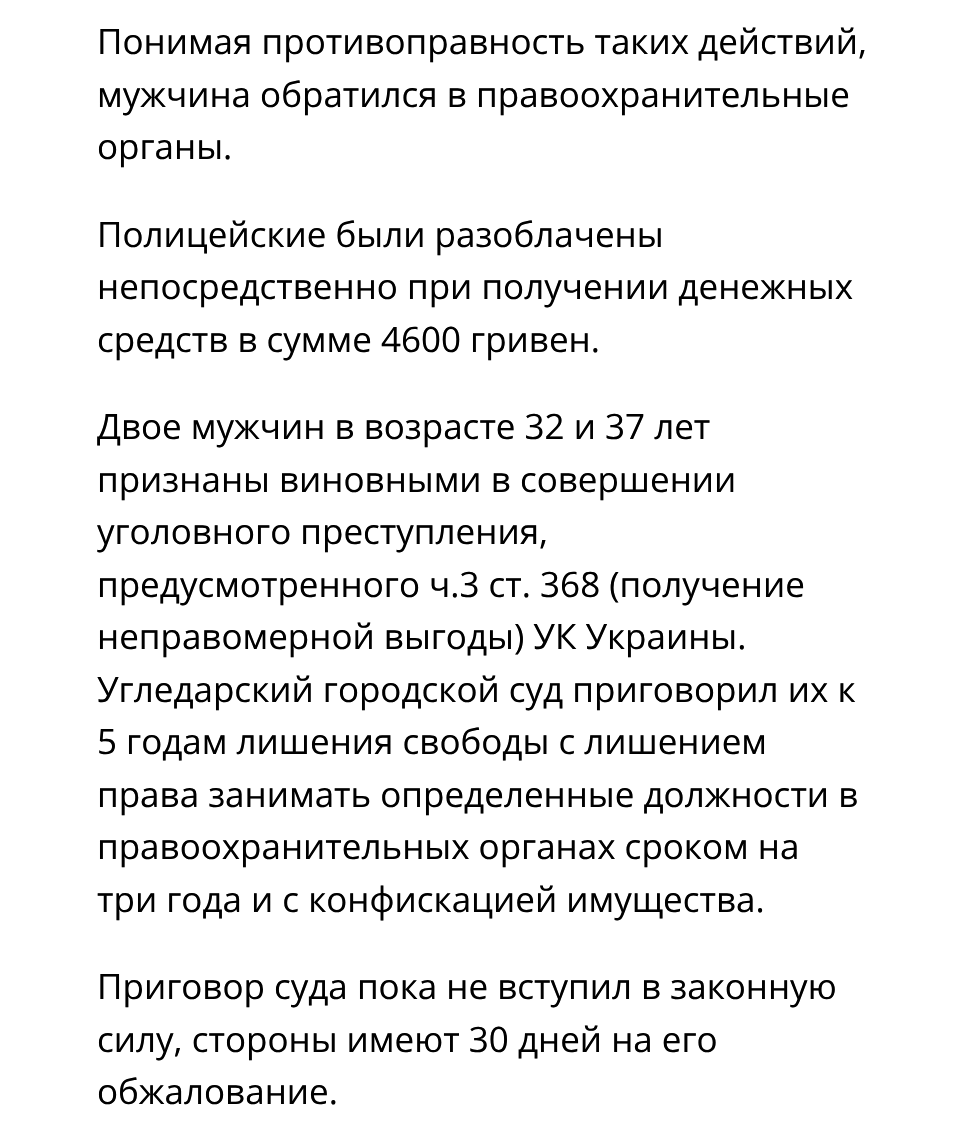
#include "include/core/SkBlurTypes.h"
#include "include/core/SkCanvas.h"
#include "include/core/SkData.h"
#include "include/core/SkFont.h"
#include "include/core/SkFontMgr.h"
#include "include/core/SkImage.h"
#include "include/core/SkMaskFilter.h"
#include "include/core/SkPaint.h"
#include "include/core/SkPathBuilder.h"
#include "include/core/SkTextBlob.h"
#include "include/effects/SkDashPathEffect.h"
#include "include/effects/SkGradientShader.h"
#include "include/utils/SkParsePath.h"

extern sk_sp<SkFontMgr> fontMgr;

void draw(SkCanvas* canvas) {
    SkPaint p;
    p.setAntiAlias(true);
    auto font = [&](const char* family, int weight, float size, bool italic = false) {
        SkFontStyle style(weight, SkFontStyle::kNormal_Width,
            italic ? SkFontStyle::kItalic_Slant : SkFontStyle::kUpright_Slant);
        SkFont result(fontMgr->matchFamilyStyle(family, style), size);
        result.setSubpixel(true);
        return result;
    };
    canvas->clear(0xFFFFFFFF);
    auto font1 = font("Open Sans", 400, 35);
    p.setColor(0xFF000000);
    {
        const struct { const char* s; float x, y; } items[] = {
            {"Понимая противоправность таких действий,", 97, 54},
            {"мужчина обратился в правоохранительные", 97, 107},
            {"органы.", 97, 159},
            {"Полицейские были разоблачены", 97, 247},
            {"непосредственно при получении денежных", 97, 299},
            {"средств в сумме 4600 гривен.", 97, 352},
            {"Двое мужчин в возрасте 32 и 37 лет", 97, 439},
            {"признаны виновными в совершении", 97, 492},
            {"уголовного преступления,", 97, 544},
            {"предусмотренного ч.3 ст. 368 (получение", 97, 597},
            {"неправомерной выгоды) УК Украины.", 97, 649},
            {"Угледарский городской суд приговорил их к", 97, 702},
            {"5 годам лишения свободы с лишением", 97, 754},
            {"права занимать определенные должности в", 97, 807},
            {"правоохранительных органах сроком на", 97, 859},
            {"три года и с конфискацией имущества.", 97, 912},
            {"Приговор суда пока не вступил в законную", 97, 999},
            {"силу, стороны имеют 30 дней на его", 97, 1052},
            {"обжалование.", 97, 1104},
        };
        for (auto [s, x, y] : items) {
            canvas->drawString(s, x, y, font1, p);
        }
    }
}
